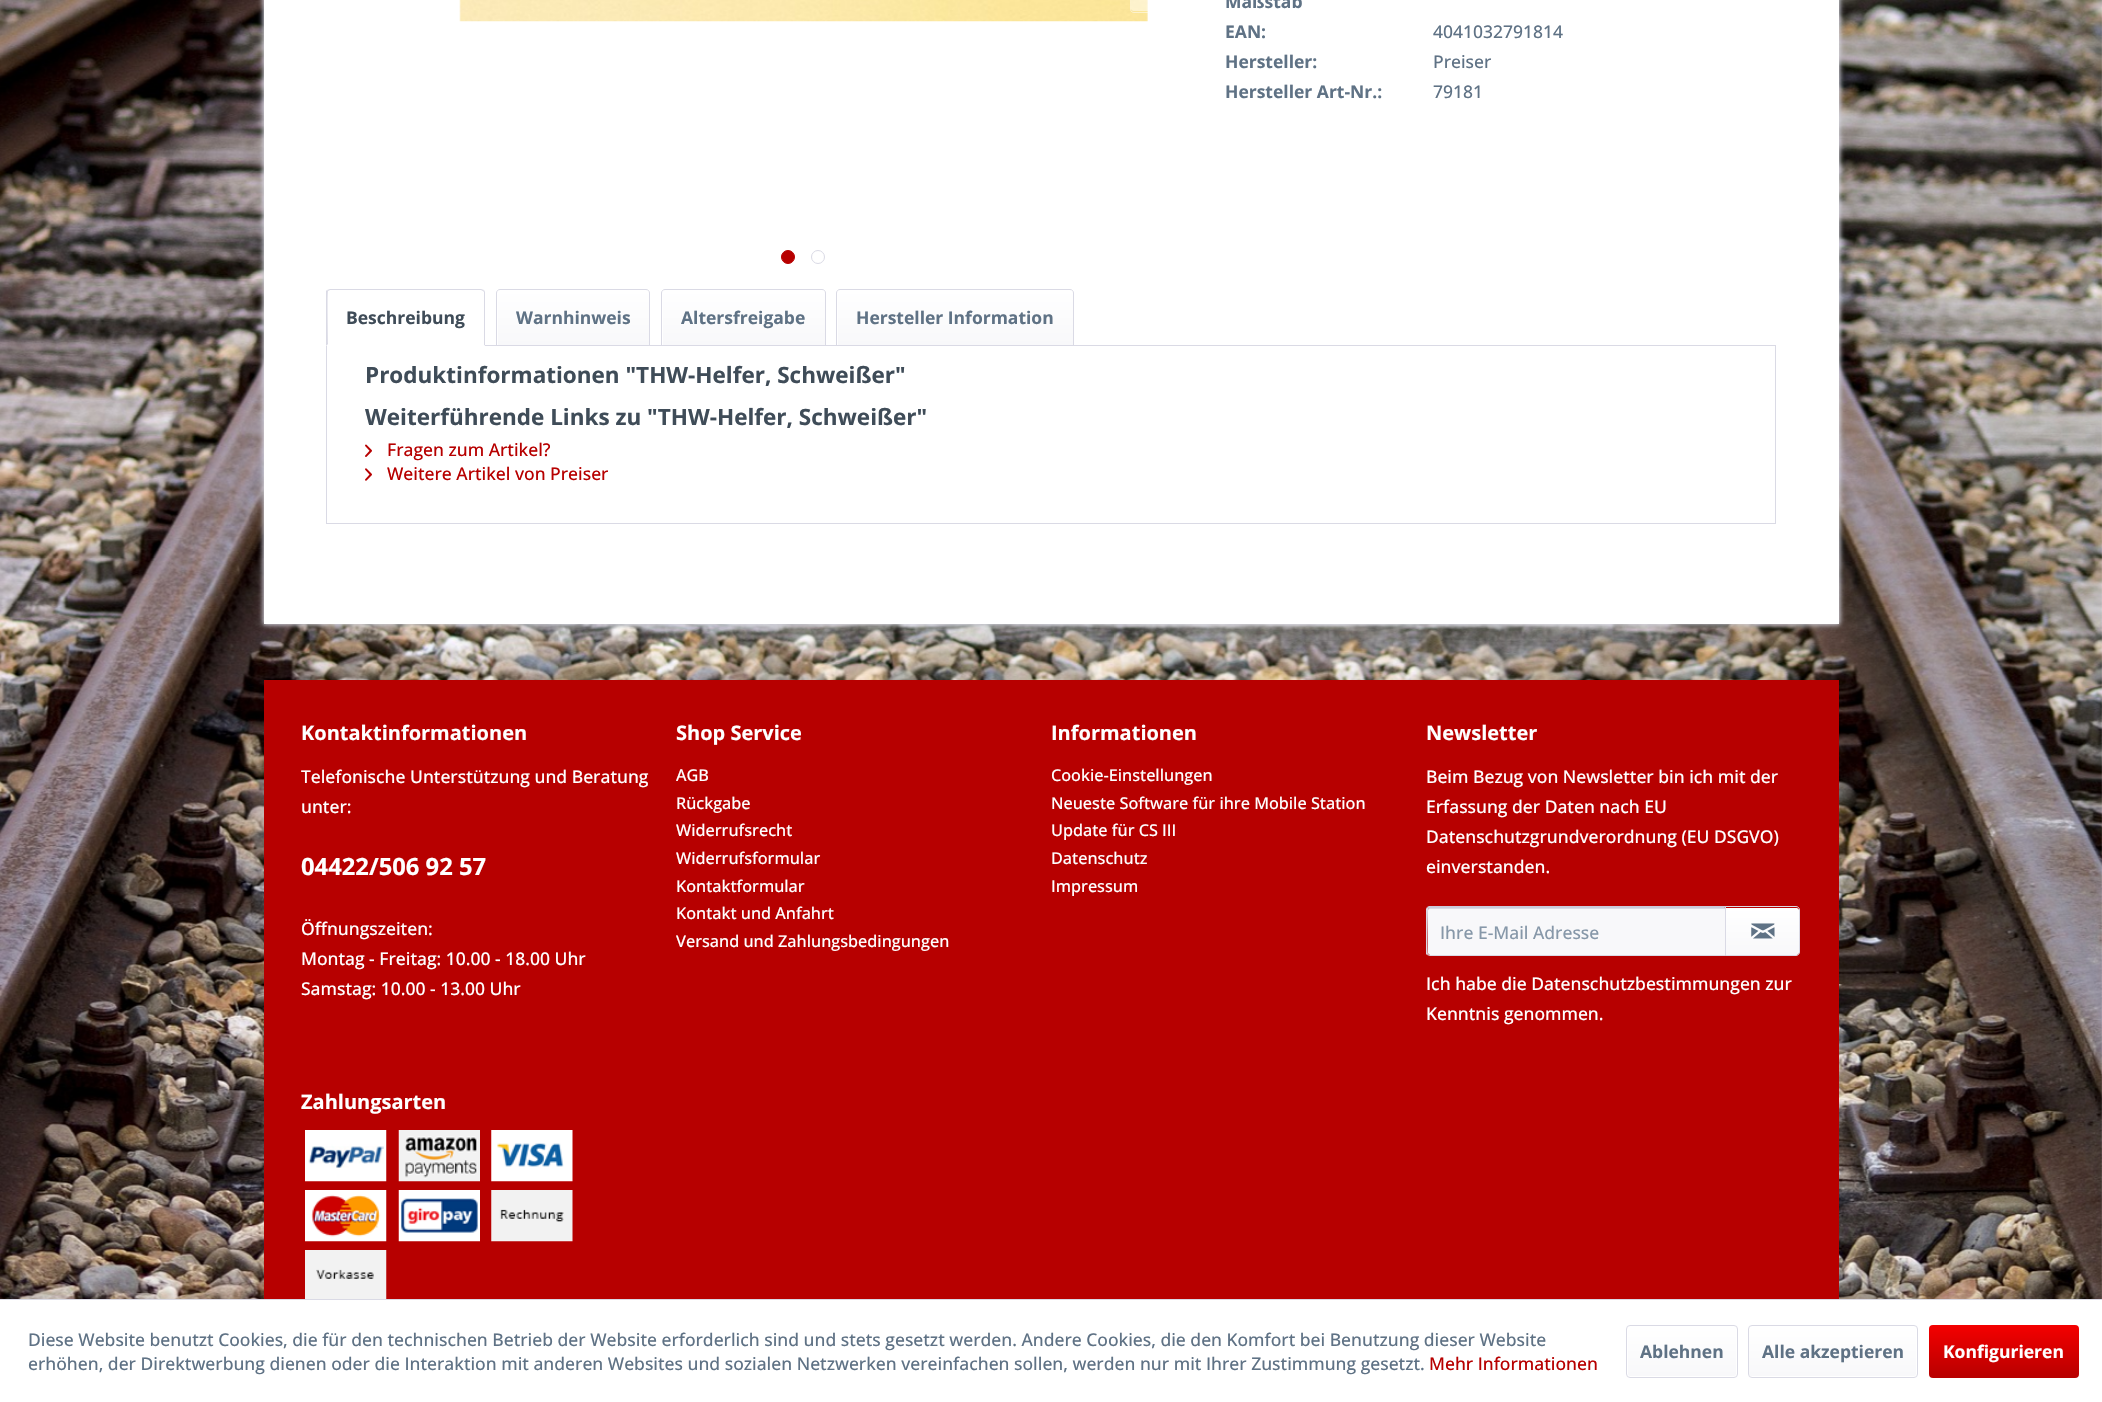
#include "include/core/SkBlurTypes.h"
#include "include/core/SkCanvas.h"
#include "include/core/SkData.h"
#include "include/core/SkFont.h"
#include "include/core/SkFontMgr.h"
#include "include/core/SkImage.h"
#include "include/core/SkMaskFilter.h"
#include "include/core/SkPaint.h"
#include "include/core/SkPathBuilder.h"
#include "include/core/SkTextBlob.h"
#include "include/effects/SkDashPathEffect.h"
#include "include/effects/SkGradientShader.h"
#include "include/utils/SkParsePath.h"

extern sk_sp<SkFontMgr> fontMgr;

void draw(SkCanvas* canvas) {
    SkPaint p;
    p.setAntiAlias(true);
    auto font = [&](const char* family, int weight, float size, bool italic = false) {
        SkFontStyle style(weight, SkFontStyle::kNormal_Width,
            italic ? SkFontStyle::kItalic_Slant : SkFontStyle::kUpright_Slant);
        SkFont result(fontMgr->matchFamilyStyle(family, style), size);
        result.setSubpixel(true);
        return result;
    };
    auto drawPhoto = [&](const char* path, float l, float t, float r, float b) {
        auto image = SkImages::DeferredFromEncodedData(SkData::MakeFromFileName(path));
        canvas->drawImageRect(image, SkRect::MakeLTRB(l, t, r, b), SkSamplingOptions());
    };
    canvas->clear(0xFFFFFFFF);
    drawPhoto("media/1.png", 0, 0, 2102, 1299);
    p.setColor(0xFFDADAE5);
    p.setMaskFilter(SkMaskFilter::MakeBlur(kNormal_SkBlurStyle, 2.5f));
    canvas->drawRect(SkRect::MakeLTRB(263, -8, 1840, 625), p);
    p.setMaskFilter(nullptr);
    p.setColor(0xFFFFFFFF);
    canvas->drawRect(SkRect::MakeLTRB(264, 0, 1839, 624), p);
    drawPhoto("media/2.png", 459, 0, 1148, 22);
    p.setColor(0x80FFFFFF);
    canvas->drawPath(SkPathBuilder().moveTo(1133.5f, -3).lineTo(1166, -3).lineTo(1166, 11).lineTo(1133.5f, 11).cubicTo(1132, 11, 1131, 10, 1131, 8.5f).lineTo(1131, -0.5f).cubicTo(1131, -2, 1132, -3, 1133.5f, -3).close().detach(), p);
    p.setStyle(SkPaint::kStroke_Style);
    p.setStrokeWidth(1);
    canvas->drawPath(SkPathBuilder().moveTo(1134, -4.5f).lineTo(1167.5f, -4.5f).lineTo(1167.5f, 12.5f).lineTo(1134, 12.5f).cubicTo(1132, 12.5f, 1130.5f, 11, 1130.5f, 9).lineTo(1130.5f, -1).cubicTo(1130.5f, -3, 1132, -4.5f, 1134, -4.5f).close().detach(), p);
    p.setStyle(SkPaint::kFill_Style);
    p.setColor(0xFFB70000);
    canvas->drawCircle(788, 257, 6.5f, p);
    p.setStyle(SkPaint::kStroke_Style);
    canvas->drawCircle(788, 257, 6.5f, p);
    p.setColor(0xFFDADAE5);
    canvas->drawCircle(818, 257, 6.5f, p);
    auto font1 = font("Open Sans", 700, 17.5f);
    p.setStyle(SkPaint::kFill_Style);
    p.setColor(0xFF5F7285);
    canvas->drawString("Maßstab", 1225, 8, font1, p);
    canvas->drawString("EAN:", 1225, 38, font1, p);
    auto font2 = font("Open Sans", 500, 17.5f);
    canvas->drawString("4041032791814", 1433, 38, font2, p);
    canvas->drawString("Hersteller:", 1225, 68, font1, p);
    canvas->drawString("Preiser", 1433, 68, font2, p);
    canvas->drawString("Hersteller Art-Nr.:", 1225, 98, font1, p);
    canvas->drawString("79181", 1433, 98, font2, p);
    p.setStyle(SkPaint::kStroke_Style);
    p.setColor(0xFFDADAE5);
    canvas->drawRect(SkRect::MakeLTRB(326.5f, 345.5f, 1775.5f, 523.5f), p);
    p.setStyle(SkPaint::kFill_Style);
    p.setColor(0xFFFFFFFF);
    canvas->drawPath(SkPathBuilder().moveTo(330, 289).lineTo(481, 289).cubicTo(483, 289, 485, 291, 485, 293).lineTo(485, 346).lineTo(326, 346).lineTo(326, 293).cubicTo(326, 291, 328, 289, 330, 289).close().detach(), p);
    p.setColor(0xFFDADAE5);
    canvas->drawPath(SkPathBuilder().moveTo(330, 289).lineTo(327, 290).lineTo(328, 291).lineTo(330, 290).lineTo(481, 290).lineTo(483, 291).lineTo(484, 290).lineTo(481, 289).close().detach(), p);
    canvas->drawPath(SkPathBuilder().moveTo(484, 290).lineTo(485, 292).lineTo(485, 346).lineTo(484, 345).lineTo(484, 292).lineTo(483, 291).close().detach(), p);
    p.setColor(0xFFFFFFFF);
    canvas->drawPath(SkPathBuilder().moveTo(485, 346).lineTo(326, 346).lineTo(328, 344).lineTo(328, 345).lineTo(484, 345).close().detach(), p);
    p.setColor(0xFFDADAE5);
    canvas->drawPath(SkPathBuilder().moveTo(326, 291).lineTo(327, 290).lineTo(328, 291).cubicTo(327, 293, 328, 339, 328, 344).lineTo(326, 346).close().detach(), p);
    p.setColor(0xFF3F4C58);
    canvas->drawString("Beschreibung", 346, 324, font1, p);
    {
        const SkColor colors[] = {0xFFFFFFFF, 0xFFF8F8FA};
        const float stops[] = {0, 1};
        const SkPoint ends[] = {{573, 290}, {573, 345}};
        p.setShader(SkGradientShader::MakeLinear(ends, colors, stops, 2, SkTileMode::kClamp));
        p.setAlpha(255);
    }
    canvas->drawPath(SkPathBuilder().moveTo(500.5f, 290).lineTo(646.5f, 290).cubicTo(648, 290, 649, 291, 649, 292.5f).lineTo(649, 345).lineTo(498, 345).lineTo(498, 292.5f).cubicTo(498, 291, 499, 290, 500.5f, 290).close().detach(), p);
    p.setStyle(SkPaint::kStroke_Style);
    p.setShader(nullptr);
    p.setColor(0xFFDADAE5);
    canvas->drawPath(SkPathBuilder().moveTo(500, 289.5f).lineTo(646, 289.5f).cubicTo(648, 289.5f, 649.5f, 291, 649.5f, 293).lineTo(649.5f, 345.5f).lineTo(496.5f, 345.5f).lineTo(496.5f, 293).cubicTo(496.5f, 291, 498, 289.5f, 500, 289.5f).close().detach(), p);
    p.setStyle(SkPaint::kFill_Style);
    p.setColor(0xFF5F7285);
    canvas->drawString("Warnhinweis", 516, 324, font1, p);
    {
        const SkColor colors[] = {0xFFFFFFFF, 0xFFF8F8FA};
        const float stops[] = {0, 1};
        const SkPoint ends[] = {{744, 290}, {744, 345}};
        p.setShader(SkGradientShader::MakeLinear(ends, colors, stops, 2, SkTileMode::kClamp));
        p.setAlpha(255);
    }
    canvas->drawPath(SkPathBuilder().moveTo(665.5f, 290).lineTo(822.5f, 290).cubicTo(824, 290, 825, 291, 825, 292.5f).lineTo(825, 345).lineTo(663, 345).lineTo(663, 292.5f).cubicTo(663, 291, 664, 290, 665.5f, 290).close().detach(), p);
    p.setStyle(SkPaint::kStroke_Style);
    p.setShader(nullptr);
    p.setColor(0xFFDADAE5);
    canvas->drawPath(SkPathBuilder().moveTo(665, 289.5f).lineTo(822, 289.5f).cubicTo(824, 289.5f, 825.5f, 291, 825.5f, 293).lineTo(825.5f, 345.5f).lineTo(661.5f, 345.5f).lineTo(661.5f, 293).cubicTo(661.5f, 291, 663, 289.5f, 665, 289.5f).close().detach(), p);
    p.setStyle(SkPaint::kFill_Style);
    p.setColor(0xFF5F7285);
    canvas->drawString("Altersfreigabe", 681, 324, font1, p);
    {
        const SkColor colors[] = {0xFFFFFFFF, 0xFFF8F8FA};
        const float stops[] = {0, 1};
        const SkPoint ends[] = {{955, 290}, {955, 345}};
        p.setShader(SkGradientShader::MakeLinear(ends, colors, stops, 2, SkTileMode::kClamp));
        p.setAlpha(255);
    }
    canvas->drawPath(SkPathBuilder().moveTo(840.5f, 290).lineTo(1070.5f, 290).cubicTo(1072, 290, 1073, 291, 1073, 292.5f).lineTo(1073, 345).lineTo(838, 345).lineTo(838, 292.5f).cubicTo(838, 291, 839, 290, 840.5f, 290).close().detach(), p);
    p.setStyle(SkPaint::kStroke_Style);
    p.setShader(nullptr);
    p.setColor(0xFFDADAE5);
    canvas->drawPath(SkPathBuilder().moveTo(840, 289.5f).lineTo(1070, 289.5f).cubicTo(1072, 289.5f, 1073.5f, 291, 1073.5f, 293).lineTo(1073.5f, 345.5f).lineTo(836.5f, 345.5f).lineTo(836.5f, 293).cubicTo(836.5f, 291, 838, 289.5f, 840, 289.5f).close().detach(), p);
    p.setStyle(SkPaint::kFill_Style);
    p.setColor(0xFF5F7285);
    canvas->drawString("Hersteller Information", 856, 324, font1, p);
    auto font3 = font("Open Sans", 700, 22.5f);
    p.setColor(0xFF3F4C58);
    canvas->drawString("Produktinformationen \"THW-Helfer, Schweißer\"", 365, 383, font3, p);
    canvas->drawString("Weiterführende Links zu \"THW-Helfer, Schweißer\"", 365, 425, font3, p);
    drawPhoto("media/3.png", 365, 444, 372, 457);
    p.setColor(0xFFB70000);
    canvas->drawString("Fragen zum Artikel?", 387, 456, font2, p);
    drawPhoto("media/4.png", 365, 468, 372, 481);
    canvas->drawString("Weitere Artikel von Preiser", 387, 480, font2, p);
    canvas->drawRect(SkRect::MakeLTRB(264, 680, 1839, 1299), p);
    auto font4 = font("Open Sans", 700, 20);
    p.setColor(0xFFFFFFFF);
    canvas->drawString("Kontaktinformationen", 301, 740, font4, p);
    canvas->drawString("Telefonische Unterstützung und Beratung", 301, 783, font2, p);
    canvas->drawString("unter:", 301, 813, font2, p);
    auto font5 = font("Open Sans", 700, 23.75f);
    canvas->drawString("04422/506 92 57", 301, 875, font5, p);
    {
        const struct { const char* s; float x, y; } items[] = {
            {"Öffnungszeiten:", 301, 935},
            {"Montag - Freitag: 10.00 - 18.00 Uhr", 301, 965},
            {"Samstag: 10.00 - 13.00 Uhr", 301, 995},
        };
        for (auto [s, x, y] : items) {
            canvas->drawString(s, x, y, font2, p);
        }
    }
    canvas->drawString("Shop Service", 676, 740, font4, p);
    auto font6 = font("Open Sans", 500, 16.25f);
    {
        const struct { const char* s; float x, y; } items[] = {
            {"AGB", 676, 781},
            {"Rückgabe", 676, 809},
            {"Widerrufsrecht", 676, 836},
            {"Widerrufsformular", 676, 864},
            {"Kontaktformular", 676, 892},
            {"Kontakt und Anfahrt", 676, 919},
            {"Versand und Zahlungsbedingungen", 676, 947},
        };
        for (auto [s, x, y] : items) {
            canvas->drawString(s, x, y, font6, p);
        }
    }
    canvas->drawString("Informationen", 1051, 740, font4, p);
    {
        const struct { const char* s; float x, y; } items[] = {
            {"Cookie-Einstellungen", 1051, 781},
            {"Neueste Software für ihre Mobile Station", 1051, 809},
            {"Update für CS III", 1051, 836},
            {"Datenschutz", 1051, 864},
            {"Impressum", 1051, 892},
        };
        for (auto [s, x, y] : items) {
            canvas->drawString(s, x, y, font6, p);
        }
    }
    canvas->drawString("Newsletter", 1426, 740, font4, p);
    {
        const struct { const char* s; float x, y; } items[] = {
            {"Beim Bezug von Newsletter bin ich mit der", 1426, 783},
            {"Erfassung der Daten nach EU", 1426, 813},
            {"Datenschutzgrundverordnung (EU DSGVO)", 1426, 843},
            {"einverstanden.", 1426, 873},
        };
        for (auto [s, x, y] : items) {
            canvas->drawString(s, x, y, font2, p);
        }
    }
    p.setColor(0xFFF8F8FA);
    canvas->drawPath(SkPathBuilder().moveTo(1430.5f, 908).lineTo(1725, 908).lineTo(1725, 955).lineTo(1430.5f, 955).cubicTo(1429, 955, 1428, 954, 1428, 952.5f).lineTo(1428, 910.5f).cubicTo(1428, 909, 1429, 908, 1430.5f, 908).close().detach(), p);
    p.setColor(0xFFDADAE5);
    canvas->drawPath(SkPathBuilder().moveTo(1430, 909).lineTo(1725, 909).lineTo(1725, 908).lineTo(1430, 908).cubicTo(1429, 908, 1428, 909, 1428, 911).cubicTo(1428, 910, 1429, 909, 1430, 909).close().detach(), p);
    p.setColor(0xFFCBCBDB);
    canvas->drawPath(SkPathBuilder().moveTo(1430, 908).lineTo(1429, 909).lineTo(1427, 907).lineTo(1429, 906).lineTo(1726, 906).lineTo(1724, 908).close().detach(), p);
    p.setColor(0xFFDADAE5);
    canvas->drawPath(SkPathBuilder().moveTo(1726, 906).lineTo(1726, 956).lineTo(1725, 955).lineTo(1725, 908).lineTo(1724, 908).close().detach(), p);
    canvas->drawPath(SkPathBuilder().moveTo(1726, 956).lineTo(1725, 955).lineTo(1430, 955).lineTo(1428, 954).lineTo(1427, 955).lineTo(1430, 956).close().detach(), p);
    canvas->drawPath(SkPathBuilder().moveTo(1426, 909).lineTo(1427, 907).lineTo(1429, 909).lineTo(1428, 910).cubicTo(1428, 914, 1427, 952, 1428, 954).lineTo(1427, 955).lineTo(1426, 954).close().detach(), p);
    p.setColor(0xFF8798A9);
    canvas->drawString("Ihre E-Mail Adresse", 1440, 939, font2, p);
    {
        const SkColor colors[] = {0xFFFFFFFF, 0xFFF8F8FA};
        const float stops[] = {0, 1};
        const SkPoint ends[] = {{1763, 908}, {1763, 955}};
        p.setShader(SkGradientShader::MakeLinear(ends, colors, stops, 2, SkTileMode::kClamp));
        p.setAlpha(255);
    }
    canvas->drawPath(SkPathBuilder().moveTo(1726, 908).lineTo(1796.5f, 908).cubicTo(1798, 908, 1799, 909, 1799, 910.5f).lineTo(1799, 952.5f).cubicTo(1799, 954, 1798, 955, 1796.5f, 955).lineTo(1726, 955).close().detach(), p);
    p.setStyle(SkPaint::kStroke_Style);
    p.setShader(nullptr);
    p.setColor(0xFFDADAE5);
    canvas->drawPath(SkPathBuilder().moveTo(1725.5f, 906.5f).lineTo(1796, 906.5f).cubicTo(1798, 906.5f, 1799.5f, 908, 1799.5f, 910).lineTo(1799.5f, 952).cubicTo(1799.5f, 954, 1798, 955.5f, 1796, 955.5f).lineTo(1725.5f, 955.5f).close().detach(), p);
    drawPhoto("media/5.png", 1751, 923, 1775, 939);
    p.setStyle(SkPaint::kFill_Style);
    p.setColor(0xFFFFFFFF);
    canvas->drawString("Ich habe die Datenschutzbestimmungen zur", 1426, 990, font2, p);
    canvas->drawString("Kenntnis genommen.", 1426, 1020, font2, p);
    canvas->drawString("Zahlungsarten", 301, 1109, font4, p);
    drawPhoto("media/6.png", 305, 1130, 387, 1182);
    drawPhoto("media/7.png", 398, 1130, 480, 1182);
    drawPhoto("media/8.png", 491, 1130, 573, 1182);
    drawPhoto("media/9.png", 305, 1190, 387, 1242);
    drawPhoto("media/10.png", 398, 1190, 480, 1242);
    drawPhoto("media/11.png", 491, 1190, 573, 1242);
    drawPhoto("media/12.png", 305, 1250, 387, 1299);
    p.setColor(0xFFDADAE5);
    canvas->drawRect(SkRect::MakeLTRB(0, 1299, 2102, 1300), p);
    p.setColor(0xFF5F7285);
    canvas->drawString("Diese Website benutzt Cookies, die für den technischen Betrieb der Website erforderlich sind und stets gesetzt werden. Andere Cookies, die den Komfort bei Benutzung dieser Website", 28, 1346, font2, p);
    canvas->drawString("erhöhen, der Direktwerbung dienen oder die Interaktion mit anderen Websites und sozialen Netzwerken vereinfachen sollen, werden nur mit Ihrer Zustimmung gesetzt.", 28, 1370, font2, p);
    p.setColor(0xFFB70000);
    canvas->drawString("Mehr Informationen", 1429, 1370, font2, p);
    {
        const SkColor colors[] = {0xFFFFFFFF, 0xFFF8F8FA};
        const float stops[] = {0, 1};
        const SkPoint ends[] = {{1682, 1326}, {1682, 1376}};
        p.setShader(SkGradientShader::MakeLinear(ends, colors, stops, 2, SkTileMode::kClamp));
        p.setAlpha(255);
    }
    canvas->drawRoundRect(SkRect::MakeLTRB(1628, 1326, 1736, 1376), 2.5f, 2.5f, p);
    p.setStyle(SkPaint::kStroke_Style);
    p.setShader(nullptr);
    p.setColor(0xFFDADAE5);
    canvas->drawRoundRect(SkRect::MakeLTRB(1626.5f, 1325.5f, 1737.5f, 1377.5f), 3.5f, 3.5f, p);
    p.setStyle(SkPaint::kFill_Style);
    p.setColor(0xFF5F7285);
    canvas->drawString("Ablehnen", 1640, 1358, font1, p);
    {
        const SkColor colors[] = {0xFFFFFFFF, 0xFFF8F8FA};
        const float stops[] = {0, 1};
        const SkPoint ends[] = {{1833, 1326}, {1833, 1376}};
        p.setShader(SkGradientShader::MakeLinear(ends, colors, stops, 2, SkTileMode::kClamp));
        p.setAlpha(255);
    }
    canvas->drawRoundRect(SkRect::MakeLTRB(1749, 1326, 1916, 1376), 2.5f, 2.5f, p);
    p.setStyle(SkPaint::kStroke_Style);
    p.setShader(nullptr);
    p.setColor(0xFFDADAE5);
    canvas->drawRoundRect(SkRect::MakeLTRB(1748.5f, 1325.5f, 1917.5f, 1377.5f), 3.5f, 3.5f, p);
    p.setStyle(SkPaint::kFill_Style);
    p.setColor(0xFF5F7285);
    canvas->drawString("Alle akzeptieren", 1762, 1358, font1, p);
    {
        const SkColor colors[] = {0xFFF40000, 0xFFB70000};
        const float stops[] = {0, 1};
        const SkPoint ends[] = {{2004, 1325}, {2004, 1378}};
        p.setShader(SkGradientShader::MakeLinear(ends, colors, stops, 2, SkTileMode::kClamp));
        p.setAlpha(255);
    }
    canvas->drawRoundRect(SkRect::MakeLTRB(1929, 1325, 2079, 1378), 4, 4, p);
    p.setShader(nullptr);
    p.setColor(0xFFFFFFFF);
    canvas->drawString("Konfigurieren", 1943, 1358, font1, p);
}
